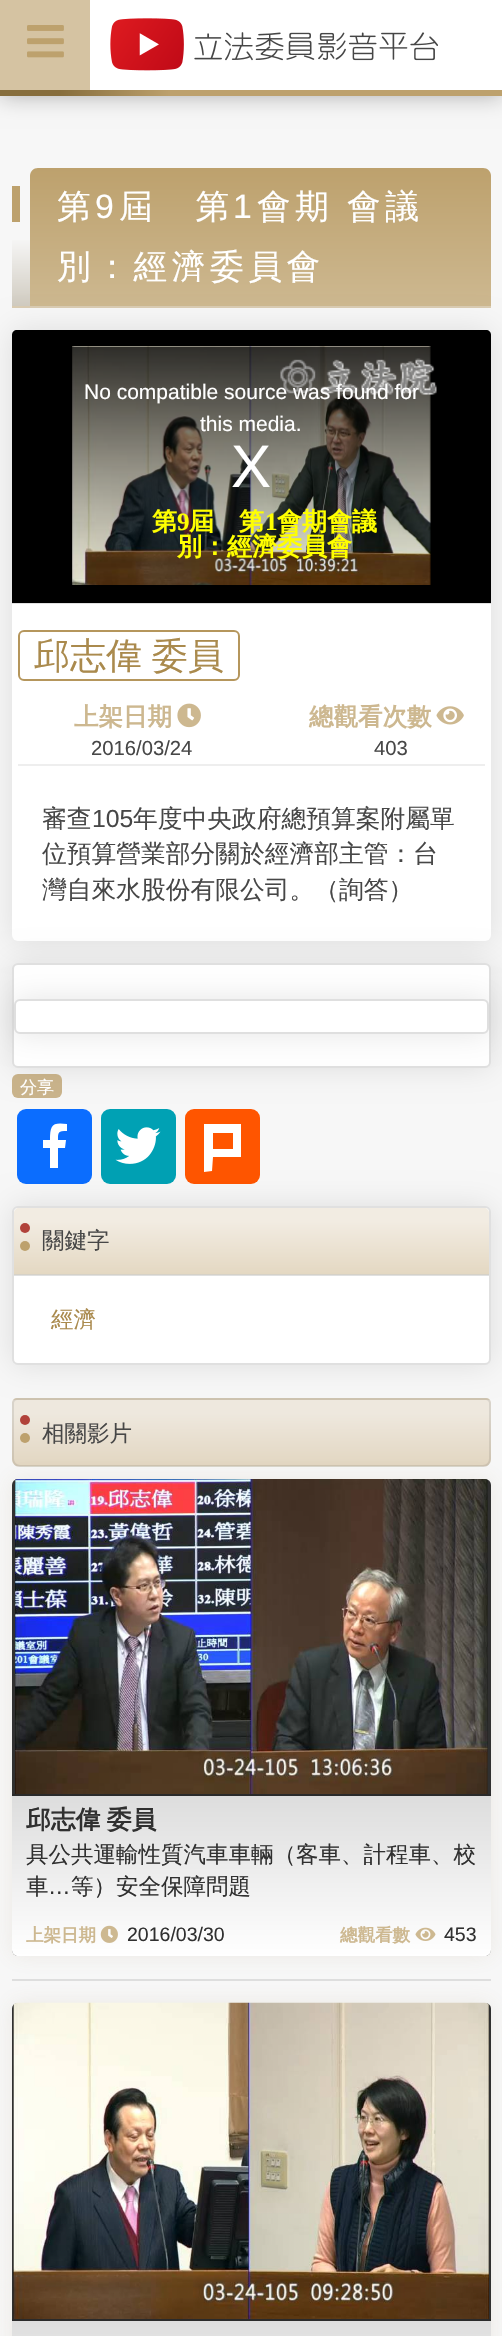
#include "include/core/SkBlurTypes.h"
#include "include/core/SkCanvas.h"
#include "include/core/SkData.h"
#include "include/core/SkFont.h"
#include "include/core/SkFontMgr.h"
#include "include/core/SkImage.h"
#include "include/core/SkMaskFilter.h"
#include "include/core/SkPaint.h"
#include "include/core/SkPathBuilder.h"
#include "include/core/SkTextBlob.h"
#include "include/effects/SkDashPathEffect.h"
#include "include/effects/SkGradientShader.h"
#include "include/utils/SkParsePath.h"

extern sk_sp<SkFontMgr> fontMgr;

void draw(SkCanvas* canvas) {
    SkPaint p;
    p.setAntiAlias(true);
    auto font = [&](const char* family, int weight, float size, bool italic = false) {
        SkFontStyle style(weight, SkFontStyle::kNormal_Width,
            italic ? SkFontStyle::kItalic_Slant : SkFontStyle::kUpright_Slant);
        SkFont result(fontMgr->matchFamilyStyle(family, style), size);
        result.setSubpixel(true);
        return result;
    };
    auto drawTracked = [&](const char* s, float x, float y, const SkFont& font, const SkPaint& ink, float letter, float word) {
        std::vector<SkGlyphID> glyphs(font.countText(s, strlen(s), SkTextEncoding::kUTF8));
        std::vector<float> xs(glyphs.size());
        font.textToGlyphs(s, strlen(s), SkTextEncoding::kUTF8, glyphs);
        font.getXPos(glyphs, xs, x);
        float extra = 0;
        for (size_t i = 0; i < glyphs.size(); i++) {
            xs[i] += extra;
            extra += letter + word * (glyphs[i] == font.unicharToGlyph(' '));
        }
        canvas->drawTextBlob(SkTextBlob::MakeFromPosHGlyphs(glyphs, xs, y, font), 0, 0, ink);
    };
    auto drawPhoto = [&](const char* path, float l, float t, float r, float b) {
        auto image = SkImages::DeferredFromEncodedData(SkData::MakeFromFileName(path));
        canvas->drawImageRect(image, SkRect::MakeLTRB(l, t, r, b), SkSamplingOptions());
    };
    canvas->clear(0xFFF7F7F7);
    p.setColor(0x4D000000);
    p.setMaskFilter(SkMaskFilter::MakeBlur(kNormal_SkBlurStyle, 11));
    canvas->drawRect(SkRect::MakeLTRB(0, 0, 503, 96), p);
    p.setMaskFilter(nullptr);
    {
        const SkColor colors[] = {0xFF876E3D, 0xFFBDA16D};
        const float stops[] = {0.12f, 0.34f};
        const SkPoint ends[] = {{0, 48}, {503, 48}};
        p.setShader(SkGradientShader::MakeLinear(ends, colors, stops, 2, SkTileMode::kClamp));
        p.setAlpha(255);
    }
    canvas->drawRect(SkRect::MakeLTRB(0, 90, 502, 96), p);
    p.setShader(nullptr);
    p.setColor(0xFFFFFFFF);
    canvas->drawRect(SkRect::MakeLTRB(90, 0, 502, 90), p);
    drawPhoto("media/1.png", 110, 18, 438, 71);
    p.setColor(0xFFD5C3A2);
    canvas->drawRect(SkRect::MakeLTRB(0, 0, 90, 90), p);
    drawPhoto("media/2.png", 27, 25, 64, 58);
    {
        const SkColor colors[] = {0xFFF7F7F7, 0xFFD0CBC0};
        const float stops[] = {0.5f, 1};
        const SkPoint ends[] = {{251, 168}, {251, 306}};
        p.setShader(SkGradientShader::MakeLinear(ends, colors, stops, 2, SkTileMode::kClamp));
        p.setAlpha(255);
    }
    canvas->drawRect(SkRect::MakeLTRB(12, 240, 491, 306), p);
    p.setShader(nullptr);
    p.setColor(0xFFDACCB2);
    canvas->drawRect(SkRect::MakeLTRB(12, 306, 491, 308), p);
    p.setColor(0xFFBDA16D);
    canvas->drawRect(SkRect::MakeLTRB(12, 186, 20, 222), p);
    {
        const SkColor colors[] = {0xFFBDA16D, 0xFFCDB890};
        const float stops[] = {0, 1};
        const SkPoint ends[] = {{260, 168}, {260, 306}};
        p.setShader(SkGradientShader::MakeLinear(ends, colors, stops, 2, SkTileMode::kClamp));
        p.setAlpha(255);
    }
    canvas->drawPath(SkPathBuilder().moveTo(38, 168).lineTo(483, 168).cubicTo(487.5f, 168, 491, 171.5f, 491, 176).lineTo(491, 306).lineTo(30, 306).lineTo(30, 176).cubicTo(30, 171.5f, 33.5f, 168, 38, 168).close().detach(), p);
    auto font1 = font("WenQuanYi Zen Hei", 500, 33.75f);
    p.setShader(nullptr);
    p.setColor(0xFFFFFFFF);
    drawTracked("第", 57, 218, font1, p, 4.5f, 0);
    auto font2 = font("Liberation Sans", 400, 33.75f);
    drawTracked("9", 95, 218, font2, p, 4.5f, 0);
    drawTracked("屆　第", 119, 218, font1, p, 4.5f, 0);
    drawTracked("1", 233, 218, font2, p, 4.5f, 0);
    drawTracked("會期 會議", 257, 218, font1, p, 4.5f, -1);
    drawTracked("別：經濟委員會", 57, 278, font1, p, 4.5f, 0);
    p.setColor(0x1A000000);
    p.setMaskFilter(SkMaskFilter::MakeBlur(kNormal_SkBlurStyle, 15));
    canvas->drawRoundRect(SkRect::MakeLTRB(12, 330, 491, 941), 6, 6, p);
    p.setMaskFilter(nullptr);
    p.setColor(0xFFFFFFFF);
    canvas->drawRoundRect(SkRect::MakeLTRB(12, 330, 491, 941), 6, 6, p);
    p.setColor(0xFF000000);
    canvas->drawPath(SkPathBuilder().moveTo(17, 330).lineTo(486, 330).cubicTo(489, 330, 491, 332, 491, 335).lineTo(491, 603).lineTo(12, 603).lineTo(12, 335).cubicTo(12, 332, 14, 330, 17, 330).close().detach(), p);
    p.setColor(0x1F000000);
    canvas->drawRect(SkRect::MakeLTRB(12, 603, 491, 604), p);
    drawPhoto("media/4.png", 73, 346, 429, 347);
    drawPhoto("media/3.png", 72, 346, 431, 585);
    {
        const SkColor colors[] = {0xCC000000, 0x00000000};
        const float stops[] = {0, 1};
        const SkPoint ends[] = {{251, 347}, {251, 585}};
        p.setShader(SkGradientShader::MakeLinear(ends, colors, stops, 2, SkTileMode::kClamp));
        p.setAlpha(255);
    }
    canvas->drawRect(SkRect::MakeLTRB(72, 347, 431, 579), p);
    drawPhoto("media/5.png", 280, 358, 437, 395);
    auto font3 = font("Liberation Sans", 400, 21);
    p.setShader(nullptr);
    p.setColor(0xFFFFFFFF);
    canvas->drawString("No compatible source was found for", 84, 399, font3, p);
    canvas->drawString("this media.", 200, 431, font3, p);
    auto font4 = font("Liberation Sans", 400, 60);
    canvas->drawString("X", 231, 487, font4, p);
    auto font5 = font("WenQuanYi Zen Hei", 700, 25);
    p.setColor(0xFFFFFF00);
    canvas->drawString("第", 152, 530, font5, p);
    auto font6 = font("Liberation Serif", 700, 25);
    canvas->drawString("9", 177, 530, font6, p);
    canvas->drawString("屆　第", 189, 530, font5, p);
    canvas->drawString("1", 265, 530, font6, p);
    canvas->drawString("會期會議", 277, 530, font5, p);
    canvas->drawString("別：經濟委員會", 177, 555, font5, p);
    p.setColor(0xFFEEEEEE);
    canvas->drawRect(SkRect::MakeLTRB(18, 764, 485, 766), p);
    p.setStyle(SkPaint::kStroke_Style);
    p.setStrokeWidth(2);
    p.setColor(0xFFB5965C);
    canvas->drawRoundRect(SkRect::MakeLTRB(19, 631, 239, 680), 5, 5, p);
    auto font7 = font("WenQuanYi Zen Hei", 500, 36);
    p.setStyle(SkPaint::kFill_Style);
    p.setColor(0xFFAA8A4D);
    drawTracked("邱志偉 委員", 34, 668, font7, p, 0, -1);
    drawPhoto("media/6.png", 177, 703, 201, 728);
    auto font8 = font("WenQuanYi Zen Hei", 700, 24.5f);
    p.setColor(0xFFCDB890);
    canvas->drawString("上架日期", 74, 725, font8, p);
    auto font9 = font("Liberation Sans", 400, 20.25f);
    p.setColor(0xFF474747);
    canvas->drawString("2016/03/24", 91, 755, font9, p);
    drawPhoto("media/7.png", 436, 706, 464, 725);
    p.setColor(0xFFCDB890);
    canvas->drawString("總觀看次數", 309, 725, font8, p);
    p.setColor(0xFF474747);
    canvas->drawString("403", 374, 755, font9, p);
    auto font10 = font("WenQuanYi Zen Hei", 500, 24.75f);
    canvas->drawString("審查", 42, 827, font10, p);
    auto font11 = font("Liberation Sans", 400, 24.75f);
    canvas->drawString("105", 92, 827, font11, p);
    {
        const struct { const char* s; float x, y; } items[] = {
            {"年度中央政府總預算案附屬單", 133, 827},
            {"位預算營業部分關於經濟部主管：台", 42, 862},
            {"灣自來水股份有限公司。（詢答）", 42, 898},
        };
        for (auto [s, x, y] : items) {
            canvas->drawString(s, x, y, font10, p);
        }
    }
    p.setColor(0x1A000000);
    p.setMaskFilter(SkMaskFilter::MakeBlur(kNormal_SkBlurStyle, 15));
    canvas->drawRoundRect(SkRect::MakeLTRB(12, 963, 491, 1068), 6, 6, p);
    p.setMaskFilter(nullptr);
    p.setColor(0xFFFFFFFF);
    canvas->drawRoundRect(SkRect::MakeLTRB(12, 963, 491, 1068), 6, 6, p);
    p.setStyle(SkPaint::kStroke_Style);
    p.setColor(0x1F000000);
    canvas->drawRoundRect(SkRect::MakeLTRB(13, 964, 490, 1067), 5, 5, p);
    p.setStyle(SkPaint::kFill_Style);
    p.setColor(0x1A000000);
    p.setMaskFilter(SkMaskFilter::MakeBlur(kNormal_SkBlurStyle, 15));
    canvas->drawRoundRect(SkRect::MakeLTRB(14, 999, 489, 1034), 6, 6, p);
    p.setMaskFilter(nullptr);
    p.setColor(0xFFFFFFFF);
    canvas->drawRoundRect(SkRect::MakeLTRB(15, 1000, 488, 1033), 5, 5, p);
    p.setStyle(SkPaint::kStroke_Style);
    p.setColor(0xFFDFDFDF);
    canvas->drawRoundRect(SkRect::MakeLTRB(15, 1000, 488, 1033), 5, 5, p);
    p.setStyle(SkPaint::kFill_Style);
    p.setColor(0xB3B5965C);
    canvas->drawRoundRect(SkRect::MakeLTRB(12, 1074, 62, 1098), 6, 6, p);
    auto font12 = font("WenQuanYi Zen Hei", 500, 17);
    p.setColor(0xFFFFFFFF);
    canvas->drawString("分享", 20, 1093, font12, p);
    p.setColor(0xFF0B6DFF);
    canvas->drawRoundRect(SkRect::MakeLTRB(17, 1109, 92, 1184), 9, 9, p);
    p.setColor(0xFFFFFFFF);
    canvas->drawPath(SkPathBuilder().moveTo(65, 1148).lineTo(58, 1148).lineTo(58, 1168).lineTo(50, 1168).lineTo(50, 1148).lineTo(43, 1148).lineTo(43, 1140).lineTo(50, 1140).cubicTo(50, 1125, 52, 1122, 67, 1124).lineTo(67, 1131).cubicTo(58, 1131, 58, 1132, 58, 1140).lineTo(66, 1140).close().detach(), p);
    p.setColor(0xFF00A1B4);
    canvas->drawRoundRect(SkRect::MakeLTRB(101, 1109, 176, 1184), 9, 9, p);
    drawPhoto("media/8.png", 115, 1127, 161, 1164);
    p.setColor(0xFFFF5500);
    canvas->drawRoundRect(SkRect::MakeLTRB(185, 1109, 260, 1184), 9, 9, p);
    p.setColor(0xFFFFFFFF);
    canvas->drawPath(SkPathBuilder().moveTo(204, 1124).lineTo(204, 1172).lineTo(212, 1171).lineTo(213, 1157).lineTo(241, 1157).lineTo(241, 1124).close().moveTo(233, 1149).lineTo(213, 1149).lineTo(213, 1133).lineTo(233, 1133).close().detach(), p);
    p.setColor(0x1A000000);
    p.setMaskFilter(SkMaskFilter::MakeBlur(kNormal_SkBlurStyle, 15));
    canvas->drawRoundRect(SkRect::MakeLTRB(12, 1206, 491, 1365), 6, 6, p);
    p.setMaskFilter(nullptr);
    p.setColor(0xFFFFFFFF);
    canvas->drawRoundRect(SkRect::MakeLTRB(12, 1206, 491, 1365), 6, 6, p);
    p.setColor(0xFFE0E0E0);
    canvas->drawRect(SkRect::MakeLTRB(14, 1275, 489, 1276), p);
    p.setStyle(SkPaint::kStroke_Style);
    p.setColor(0x1F000000);
    canvas->drawRoundRect(SkRect::MakeLTRB(13, 1207, 490, 1364), 5, 5, p);
    p.setStyle(SkPaint::kFill_Style);
    {
        const SkColor colors[] = {0xFFF2ECE2, 0xFFE4D8C2};
        const float stops[] = {0.2f, 1};
        const SkPoint ends[] = {{251, 1208}, {251, 1274}};
        p.setShader(SkGradientShader::MakeLinear(ends, colors, stops, 2, SkTileMode::kClamp));
        p.setAlpha(255);
    }
    canvas->drawPath(SkPathBuilder().moveTo(19, 1208).lineTo(484, 1208).cubicTo(487, 1208, 489, 1210, 489, 1213).lineTo(489, 1274).lineTo(14, 1274).lineTo(14, 1213).cubicTo(14, 1210, 16, 1208, 19, 1208).close().detach(), p);
    {
        const SkColor colors[] = {0xFFD5D1C7, 0xFFC9BEAB};
        const float stops[] = {0.2f, 1};
        const SkPoint ends[] = {{251, 1274}, {251, 1340}};
        p.setShader(SkGradientShader::MakeLinear(ends, colors, stops, 2, SkTileMode::kClamp));
        p.setAlpha(255);
    }
    canvas->drawRect(SkRect::MakeLTRB(14, 1274, 489, 1275), p);
    p.setShader(nullptr);
    p.setColor(0xFFB1423A);
    canvas->drawCircle(25, 1228, 5, p);
    auto font13 = font("WenQuanYi Zen Hei", 500, 22.5f);
    p.setColor(0xFF474747);
    canvas->drawString("關鍵字", 42, 1248, font13, p);
    p.setColor(0xFFBDA16D);
    canvas->drawCircle(25, 1246, 5, p);
    p.setColor(0xFFAA8A4D);
    canvas->drawString("經濟", 51, 1327, font13, p);
    canvas->save();
    canvas->clipPath(SkPathBuilder().moveTo(17, 1398).lineTo(486, 1398).cubicTo(489, 1398, 491, 1400, 491, 1403).lineTo(491, 1459).cubicTo(491, 1463.5f, 487.5f, 1467, 483, 1467).lineTo(20, 1467).cubicTo(15.5f, 1467, 12, 1463.5f, 12, 1459).lineTo(12, 1403).cubicTo(12, 1400, 14, 1398, 17, 1398).close().detach(), true);
    {
        const SkColor colors[] = {0xFFEEE8DE, 0xFFE2D6C1};
        const float stops[] = {0.2f, 1};
        const SkPoint ends[] = {{251, 1334}, {251, 1400}};
        p.setShader(SkGradientShader::MakeLinear(ends, colors, stops, 2, SkTileMode::kClamp));
        p.setAlpha(255);
    }
    canvas->drawRect(SkRect::MakeLTRB(12, 1398, 491, 1400), p);
    {
        const SkColor colors[] = {0xFFEEE8DE, 0xFFE2D6C1};
        const float stops[] = {0.2f, 1};
        const SkPoint ends[] = {{251, 1400}, {251, 1466}};
        p.setShader(SkGradientShader::MakeLinear(ends, colors, stops, 2, SkTileMode::kClamp));
        p.setAlpha(255);
    }
    canvas->drawRect(SkRect::MakeLTRB(12, 1400, 491, 1466), p);
    {
        const SkColor colors[] = {0xFFEEE9DE, 0xFFE2D6C1};
        const float stops[] = {0.2f, 1};
        const SkPoint ends[] = {{251, 1466}, {251, 1532}};
        p.setShader(SkGradientShader::MakeLinear(ends, colors, stops, 2, SkTileMode::kClamp));
        p.setAlpha(255);
    }
    canvas->drawRect(SkRect::MakeLTRB(12, 1466, 491, 1467), p);
    canvas->restore();
    p.setStyle(SkPaint::kStroke_Style);
    p.setShader(nullptr);
    p.setColor(0x17000000);
    canvas->drawPath(SkPathBuilder().moveTo(17, 1399).lineTo(486, 1399).cubicTo(488, 1399, 490, 1401, 490, 1403).lineTo(490, 1459).cubicTo(490, 1463, 487, 1466, 483, 1466).lineTo(20, 1466).cubicTo(16, 1466, 13, 1463, 13, 1459).lineTo(13, 1403).cubicTo(13, 1401, 15, 1399, 17, 1399).close().detach(), p);
    p.setStyle(SkPaint::kFill_Style);
    p.setColor(0xFFB1423A);
    canvas->drawCircle(25, 1420, 5, p);
    p.setColor(0xFFBDA16D);
    canvas->drawCircle(25, 1438, 5, p);
    p.setColor(0xFF474747);
    canvas->drawString("相關影片", 42, 1441, font13, p);
    p.setColor(0xFFDEDEDE);
    canvas->drawRect(SkRect::MakeLTRB(12, 1979, 491, 1981), p);
    p.setColor(0x1A876E3D);
    p.setMaskFilter(SkMaskFilter::MakeBlur(kNormal_SkBlurStyle, 10.5f));
    canvas->drawRoundRect(SkRect::MakeLTRB(12, 1479, 491, 1956), 6, 6, p);
    p.setMaskFilter(nullptr);
    p.setColor(0xFF303030);
    canvas->drawRoundRect(SkRect::MakeLTRB(12, 1479, 491, 1956), 6, 6, p);
    drawPhoto("media/9.png", 15, 1479, 488, 1794);
    p.setColor(0xFF2A2A2A);
    canvas->drawRect(SkRect::MakeLTRB(12, 1794, 491, 1796), p);
    {
        const SkColor colors[] = {0xFFDDDDDD, 0xFFFFFFFF};
        const float stops[] = {0, 1};
        const SkPoint ends[] = {{251, 1796}, {251, 1956}};
        p.setShader(SkGradientShader::MakeLinear(ends, colors, stops, 2, SkTileMode::kClamp));
        p.setAlpha(255);
    }
    canvas->drawPath(SkPathBuilder().moveTo(12, 1796).lineTo(491, 1796).lineTo(491, 1950).cubicTo(491, 1953.5f, 488.5f, 1956, 485, 1956).lineTo(18, 1956).cubicTo(14.5f, 1956, 12, 1953.5f, 12, 1950).close().detach(), p);
    auto font14 = font("WenQuanYi Zen Hei", 700, 24.75f);
    p.setShader(nullptr);
    p.setColor(0xFF303030);
    drawTracked("邱志偉 委員", 26, 1828, font14, p, 0, -1);
    canvas->drawString("具公共運輸性質汽車車輛（客車、計程車、校", 26, 1862, font13, p);
    canvas->drawString("車", 26, 1894, font13, p);
    auto font15 = font("Liberation Sans", 400, 22.5f);
    canvas->drawString("…", 48, 1894, font15, p);
    canvas->drawString("等）安全保障問題", 71, 1894, font13, p);
    drawPhoto("media/10.png", 100, 1925, 118, 1943);
    auto font16 = font("WenQuanYi Zen Hei", 700, 17.5f);
    p.setColor(0xFFCDB890);
    canvas->drawString("上架日期", 26, 1941, font16, p);
    auto font17 = font("Liberation Sans", 400, 19.5f);
    p.setColor(0xFF303030);
    canvas->drawString("2016/03/30", 127, 1941, font17, p);
    drawPhoto("media/11.png", 415, 1927, 436, 1941);
    p.setColor(0xFFCDB890);
    canvas->drawString("總觀看數", 340, 1941, font16, p);
    p.setColor(0xFF303030);
    canvas->drawString("453", 444, 1941, font17, p);
    p.setColor(0x1A876E3D);
    p.setMaskFilter(SkMaskFilter::MakeBlur(kNormal_SkBlurStyle, 10.5f));
    canvas->drawRoundRect(SkRect::MakeLTRB(12, 2003, 491, 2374), 6, 6, p);
    p.setMaskFilter(nullptr);
    p.setColor(0xFF303030);
    canvas->drawPath(SkPathBuilder().moveTo(18, 2003).lineTo(485, 2003).cubicTo(488.5f, 2003, 491, 2005.5f, 491, 2009).lineTo(491, 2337).lineTo(12, 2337).lineTo(12, 2009).cubicTo(12, 2005.5f, 14.5f, 2003, 18, 2003).close().detach(), p);
    drawPhoto("media/12.png", 13, 2002, 489, 2319);
    p.setColor(0xFF2A2A2A);
    canvas->drawRect(SkRect::MakeLTRB(12, 2319, 491, 2321), p);
    {
        const SkColor colors[] = {0xFFDDDDDD, 0xFFFFFFFF};
        const float stops[] = {0, 1};
        const SkPoint ends[] = {{251, 2321}, {251, 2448}};
        p.setShader(SkGradientShader::MakeLinear(ends, colors, stops, 2, SkTileMode::kClamp));
        p.setAlpha(255);
    }
    canvas->drawRect(SkRect::MakeLTRB(12, 2321, 491, 2336), p);
}
